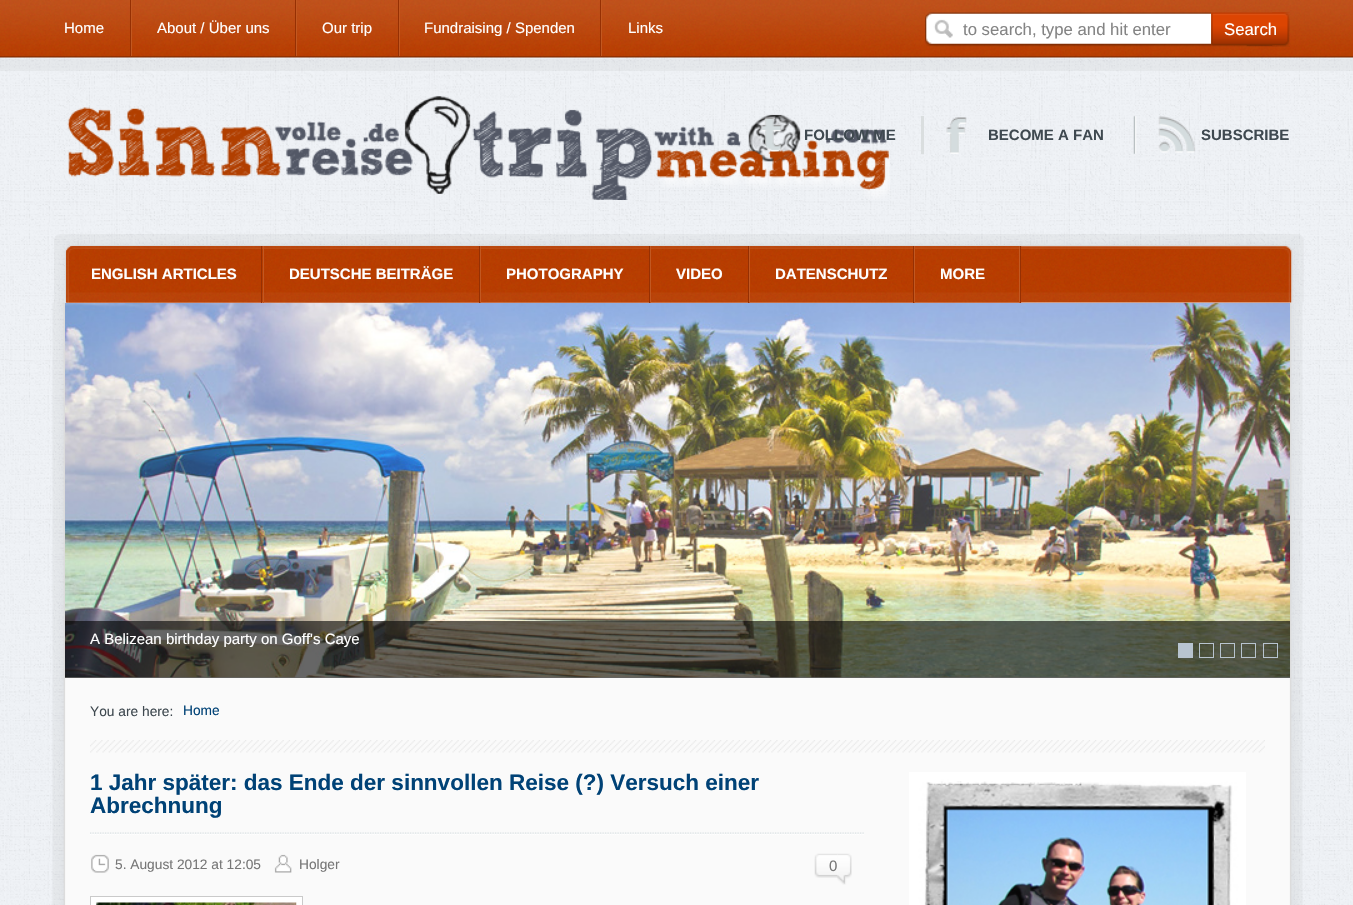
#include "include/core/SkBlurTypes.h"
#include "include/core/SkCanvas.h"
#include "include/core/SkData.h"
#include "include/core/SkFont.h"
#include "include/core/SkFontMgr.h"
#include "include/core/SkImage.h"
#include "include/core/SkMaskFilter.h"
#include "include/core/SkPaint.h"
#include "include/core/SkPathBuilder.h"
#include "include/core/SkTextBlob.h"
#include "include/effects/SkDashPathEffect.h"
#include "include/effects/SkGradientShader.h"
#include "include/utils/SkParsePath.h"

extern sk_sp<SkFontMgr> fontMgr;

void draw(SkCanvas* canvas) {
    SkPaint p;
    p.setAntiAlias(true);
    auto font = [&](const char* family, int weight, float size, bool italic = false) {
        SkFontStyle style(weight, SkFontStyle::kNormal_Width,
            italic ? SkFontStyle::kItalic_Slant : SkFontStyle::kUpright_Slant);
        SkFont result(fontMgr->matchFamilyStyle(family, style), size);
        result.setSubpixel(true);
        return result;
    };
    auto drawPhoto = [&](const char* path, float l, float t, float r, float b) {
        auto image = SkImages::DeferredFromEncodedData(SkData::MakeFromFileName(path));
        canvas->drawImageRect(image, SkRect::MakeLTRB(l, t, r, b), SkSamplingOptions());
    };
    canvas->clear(0xFFFFFFFF);
    drawPhoto("media/1.png", 0, 57, 1353, 905);
    drawPhoto("media/2.png", 0, 0, 1353, 71);
    p.setColor(0xFF963003);
    canvas->drawRect(SkRect::MakeLTRB(130, 0, 131, 56), p);
    auto font1 = font("Liberation Sans", 400, 15);
    p.setColor(0xFFFFFFFF);
    canvas->drawString("Home", 64, 33, font1, p);
    p.setColor(0xFF963003);
    canvas->drawRect(SkRect::MakeLTRB(295, 0, 296, 56), p);
    p.setColor(0xFFC25821);
    canvas->drawRect(SkRect::MakeLTRB(131, 0, 132, 56), p);
    p.setColor(0xFFFFFFFF);
    canvas->drawString("About / Über uns", 157, 33, font1, p);
    p.setColor(0xFF963003);
    canvas->drawRect(SkRect::MakeLTRB(398, 0, 399, 56), p);
    p.setColor(0xFFC25821);
    canvas->drawRect(SkRect::MakeLTRB(296, 0, 297, 56), p);
    p.setColor(0xFFFFFFFF);
    canvas->drawString("Our trip", 322, 33, font1, p);
    p.setColor(0xFF963003);
    canvas->drawRect(SkRect::MakeLTRB(600, 0, 601, 56), p);
    p.setColor(0xFFC25821);
    canvas->drawRect(SkRect::MakeLTRB(399, 0, 400, 56), p);
    p.setColor(0xFFFFFFFF);
    canvas->drawString("Fundraising / Spenden", 424, 33, font1, p);
    p.setColor(0xFFC25821);
    canvas->drawRect(SkRect::MakeLTRB(601, 0, 602, 56), p);
    p.setColor(0xFFFFFFFF);
    canvas->drawString("Links", 628, 33, font1, p);
    drawPhoto("media/3.png", 925, 12, 1212, 47);
    auto font2 = font("Liberation Sans", 400, 16.75f);
    p.setColor(0xFF848484);
    canvas->drawString("to search, type and hit enter", 963, 35, font2, p);
    drawPhoto("media/4.png", 1211, 12, 1290, 47);
    drawPhoto("media/5.png", 1272, 12, 1290, 47);
    p.setColor(0xFFFFFFFF);
    canvas->drawString("Search", 1224, 35, font2, p);
    drawPhoto("media/6.png", 67, 96, 890, 200);
    drawPhoto("media/7.png", 761, 117, 782, 152);
    auto font3 = font("Liberation Sans", 700, 15);
    p.setColor(0xFF3F4950);
    canvas->drawString("FOLLOW ME", 804, 140, font3, p);
    p.setColor(0xFFDADEDF);
    canvas->drawRect(SkRect::MakeLTRB(921, 116, 924, 154), p);
    drawPhoto("media/8.png", 946, 117, 967, 154);
    p.setColor(0xFF3F4950);
    canvas->drawString("BECOME A FAN", 988, 140, font3, p);
    drawPhoto("media/9.png", 1133, 116, 1137, 154);
    drawPhoto("media/10.png", 1158, 116, 1196, 153);
    canvas->drawString("SUBSCRIBE", 1201, 140, font3, p);
    drawPhoto("media/14.png", 52, 302, 1303, 905);
    drawPhoto("media/15.png", 65, 302, 1290, 678);
    drawPhoto("media/11.png", 54, 234, 1304, 303);
    drawPhoto("media/12.png", 66, 246, 1292, 303);
    drawPhoto("media/13.png", 66, 246, 1022, 303);
    p.setColor(0xFF963003);
    canvas->drawRect(SkRect::MakeLTRB(261, 246, 262, 303), p);
    p.setColor(0xFFFFFFFF);
    canvas->drawString("ENGLISH ARTICLES", 91, 279, font3, p);
    p.setColor(0xFF963003);
    canvas->drawRect(SkRect::MakeLTRB(479, 246, 480, 303), p);
    p.setColor(0xFFC25821);
    canvas->drawRect(SkRect::MakeLTRB(263, 246, 264, 303), p);
    p.setColor(0xFFFFFFFF);
    canvas->drawString("DEUTSCHE BEITRÄGE", 289, 279, font3, p);
    p.setColor(0xFF963003);
    canvas->drawRect(SkRect::MakeLTRB(649, 246, 650, 303), p);
    p.setColor(0xFFC25821);
    canvas->drawRect(SkRect::MakeLTRB(480, 246, 481, 303), p);
    p.setColor(0xFFFFFFFF);
    canvas->drawString("PHOTOGRAPHY", 506, 279, font3, p);
    p.setColor(0xFF963003);
    canvas->drawRect(SkRect::MakeLTRB(748, 246, 749, 303), p);
    p.setColor(0xFFC25821);
    canvas->drawRect(SkRect::MakeLTRB(650, 246, 651, 303), p);
    p.setColor(0xFFFFFFFF);
    canvas->drawString("VIDEO", 676, 279, font3, p);
    p.setColor(0xFF963003);
    canvas->drawRect(SkRect::MakeLTRB(913, 246, 914, 303), p);
    p.setColor(0xFFC25821);
    canvas->drawRect(SkRect::MakeLTRB(749, 246, 750, 303), p);
    p.setColor(0xFFFFFFFF);
    canvas->drawString("DATENSCHUTZ", 775, 279, font3, p);
    {
        const struct { float l, t, r, b; SkColor color; } items[] = {
            {1020, 246, 1021, 303, 0xFF963003},
            {914, 246, 915, 303, 0xFFC25821},
            {1019, 246, 1020, 303, 0xFFC25821},
        };
        for (auto [l, t, r, b, color] : items) {
            p.setColor(color);
            canvas->drawRect(SkRect::MakeLTRB(l, t, r, b), p);
        }
    }
    p.setColor(0xFFFFFFFF);
    canvas->drawString("MORE", 940, 279, font3, p);
    p.setColor(0x99000000);
    canvas->drawRect(SkRect::MakeLTRB(65, 621, 1290, 678), p);
    p.setColor(0xFFFFFFFF);
    canvas->drawString("A Belizean birthday party on Goff's Caye", 90, 644, font1, p);
    p.setColor(0xFFB8C4CF);
    canvas->drawRect(SkRect::MakeLTRB(1178, 643, 1193, 658), p);
    p.setStyle(SkPaint::kStroke_Style);
    p.setStrokeWidth(1);
    canvas->drawRect(SkRect::MakeLTRB(1199.5f, 643.5f, 1213.5f, 657.5f), p);
    canvas->drawRect(SkRect::MakeLTRB(1220.5f, 643.5f, 1234.5f, 657.5f), p);
    canvas->drawRect(SkRect::MakeLTRB(1241.5f, 643.5f, 1255.5f, 657.5f), p);
    canvas->drawRect(SkRect::MakeLTRB(1263.5f, 643.5f, 1277.5f, 657.5f), p);
    drawPhoto("media/16.png", 90, 740, 1265, 753);
    auto font4 = font("Liberation Sans", 400, 13.75f);
    p.setStyle(SkPaint::kFill_Style);
    p.setColor(0xFF3F4950);
    canvas->drawString("You are here:", 90, 716, font4, p);
    p.setColor(0xFF004276);
    canvas->drawString("Home", 183, 715, font4, p);
    drawPhoto("media/17.png", 90, 832, 864, 835);
    auto font5 = font("Liberation Sans", 700, 22.5f);
    canvas->drawString("1 Jahr später: das Ende der sinnvollen Reise (?) Versuch einer", 90, 790, font5, p);
    canvas->drawString("Abrechnung", 90, 813, font5, p);
    drawPhoto("media/18.png", 91, 854, 109, 873);
    p.setColor(0xFF777777);
    canvas->drawString("5. August 2012 at 12:05", 115, 869, font4, p);
    drawPhoto("media/19.png", 274, 854, 292, 873);
    canvas->drawString("Holger", 299, 869, font4, p);
    drawPhoto("media/20.png", 837, 853, 852, 885);
    drawPhoto("media/21.png", 814, 853, 838, 878);
    canvas->drawString("0", 829, 871, font1, p);
    p.setColor(0xFFFFFFFF);
    canvas->drawRect(SkRect::MakeLTRB(90.5f, 896.5f, 302.5f, 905.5f), p);
    p.setStyle(SkPaint::kStroke_Style);
    p.setColor(0xFFCACACA);
    canvas->drawRect(SkRect::MakeLTRB(90.5f, 896.5f, 302.5f, 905.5f), p);
    drawPhoto("media/22.png", 96, 902, 297, 905);
    drawPhoto("media/23.png", 909, 772, 1246, 905);
}
